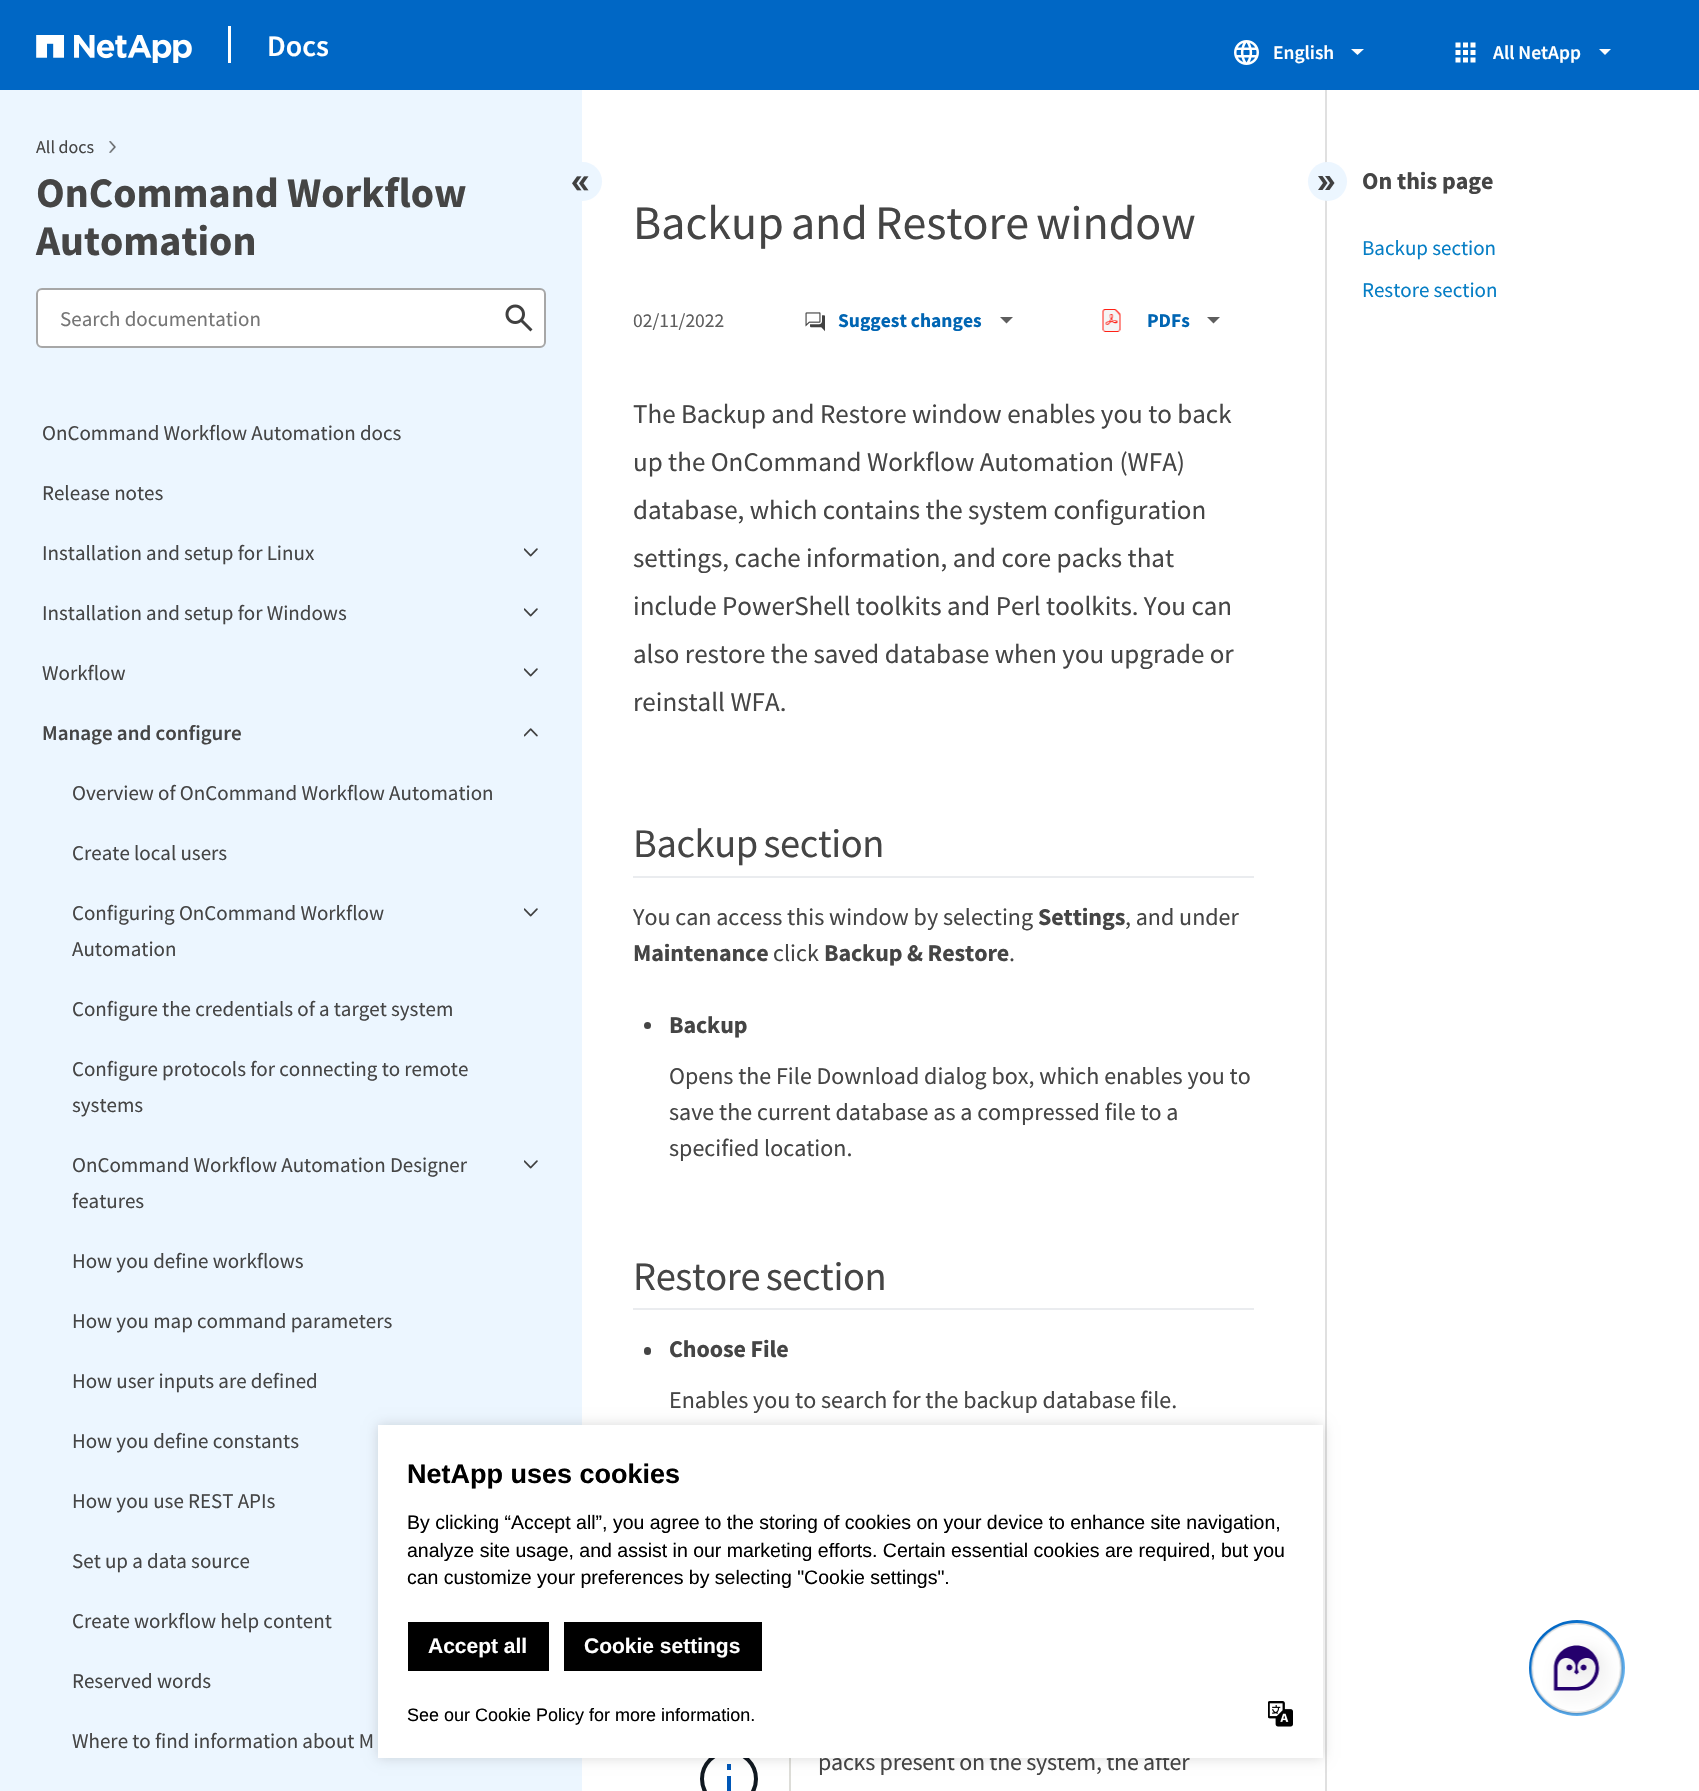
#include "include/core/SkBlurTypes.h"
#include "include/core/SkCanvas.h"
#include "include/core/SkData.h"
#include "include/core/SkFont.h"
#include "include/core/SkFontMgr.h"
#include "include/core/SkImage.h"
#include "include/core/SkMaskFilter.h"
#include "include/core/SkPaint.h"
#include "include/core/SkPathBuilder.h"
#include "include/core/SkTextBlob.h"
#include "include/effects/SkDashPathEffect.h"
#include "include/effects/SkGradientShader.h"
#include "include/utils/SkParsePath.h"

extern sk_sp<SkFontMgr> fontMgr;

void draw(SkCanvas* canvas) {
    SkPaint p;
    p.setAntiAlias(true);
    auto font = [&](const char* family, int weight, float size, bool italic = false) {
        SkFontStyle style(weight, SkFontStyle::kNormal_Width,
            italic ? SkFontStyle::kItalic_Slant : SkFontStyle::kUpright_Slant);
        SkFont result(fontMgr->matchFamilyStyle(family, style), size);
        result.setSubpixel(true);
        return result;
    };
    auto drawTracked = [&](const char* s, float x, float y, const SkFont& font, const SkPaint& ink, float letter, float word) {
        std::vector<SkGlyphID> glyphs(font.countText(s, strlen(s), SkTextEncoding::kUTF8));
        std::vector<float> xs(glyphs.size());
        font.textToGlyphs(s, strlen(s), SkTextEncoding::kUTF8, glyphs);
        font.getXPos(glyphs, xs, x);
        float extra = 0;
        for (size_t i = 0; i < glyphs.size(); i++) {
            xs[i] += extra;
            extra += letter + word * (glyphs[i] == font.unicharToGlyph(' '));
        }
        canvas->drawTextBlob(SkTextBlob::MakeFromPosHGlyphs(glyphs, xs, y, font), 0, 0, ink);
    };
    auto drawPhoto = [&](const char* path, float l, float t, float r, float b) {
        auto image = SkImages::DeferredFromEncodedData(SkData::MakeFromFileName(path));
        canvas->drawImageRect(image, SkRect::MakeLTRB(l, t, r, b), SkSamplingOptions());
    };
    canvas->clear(0xFFFFFFFF);
    p.setColor(0xFF0067C5);
    canvas->drawRect(SkRect::MakeLTRB(0, 0, 1699, 90), p);
    drawPhoto("media/1.png", 36, 35, 192, 63);
    p.setColor(0xFFFFFFFF);
    canvas->drawRect(SkRect::MakeLTRB(228, 26, 231, 63), p);
    auto font1 = font("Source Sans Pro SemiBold", 600, 30);
    canvas->drawString("Docs", 267, 56, font1, p);
    drawPhoto("media/2.png", 1234, 40, 1259, 65);
    auto font2 = font("Source Sans Pro SemiBold", 600, 19.5f);
    canvas->drawString("English", 1273, 59, font2, p);
    p.setColor(0xFFFDFDFD);
    canvas->drawPath(SkPathBuilder().moveTo(1357.5f, 55).lineTo(1351, 49).lineTo(1364, 49).close().detach(), p);
    drawPhoto("media/3.png", 1455, 42, 1476, 63);
    p.setColor(0xFFFFFFFF);
    canvas->drawString("All NetApp", 1493, 59, font2, p);
    p.setColor(0xFFFDFDFD);
    canvas->drawPath(SkPathBuilder().moveTo(1605, 55).lineTo(1599, 49).lineTo(1611, 49).close().detach(), p);
    p.setColor(0xFFECF6FF);
    canvas->drawRect(SkRect::MakeLTRB(0, 90, 582, 1791), p);
    auto font3 = font("Source Sans Pro", 400, 18);
    p.setColor(0xFF454545);
    canvas->drawString("All docs", 36, 153, font3, p);
    drawPhoto("media/4.png", 109, 141, 116, 153);
    auto font4 = font("Source Sans Pro", 700, 42);
    canvas->drawString("OnCommand Workflow", 36, 207, font4, p);
    canvas->drawString("Automation", 36, 255, font4, p);
    p.setColor(0xFFECF6FF);
    canvas->drawCircle(582.5f, 181.5f, 19.5f, p);
    drawPhoto("media/5.png", 572, 176, 589, 191);
    p.setColor(0xFFFFFFFF);
    canvas->drawRoundRect(SkRect::MakeLTRB(37, 289, 545, 347), 5, 5, p);
    p.setStyle(SkPaint::kStroke_Style);
    p.setStrokeWidth(2);
    p.setColor(0xFFA7A7A7);
    canvas->drawRoundRect(SkRect::MakeLTRB(37, 289, 545, 347), 5, 5, p);
    auto font5 = font("Source Sans Pro", 400, 21);
    p.setStyle(SkPaint::kFill_Style);
    p.setColor(0xFF757575);
    canvas->drawString("Search documentation", 60, 326, font5, p);
    drawPhoto("media/6.png", 505, 304, 533, 332);
    p.setColor(0xFF454545);
    {
        const struct { const char* s; float x, y; } items[] = {
            {"OnCommand Workflow Automation docs", 42, 440},
            {"Release notes", 42, 500},
            {"Installation and setup for Linux", 42, 560},
        };
        for (auto [s, x, y] : items) {
            canvas->drawString(s, x, y, font5, p);
        }
    }
    drawPhoto("media/7.png", 524, 548, 538, 557);
    canvas->drawString("Installation and setup for Windows", 42, 620, font5, p);
    drawPhoto("media/7.png", 524, 608, 538, 617);
    canvas->drawString("Workflow", 42, 680, font5, p);
    drawPhoto("media/7.png", 524, 668, 538, 677);
    auto font6 = font("Source Sans Pro SemiBold", 600, 21);
    canvas->drawString("Manage and configure", 42, 740, font6, p);
    drawPhoto("media/8.png", 524, 728, 538, 737);
    {
        const struct { const char* s; float x, y; } items[] = {
            {"Overview of OnCommand Workflow Automation", 72, 800},
            {"Create local users", 72, 860},
            {"Configuring OnCommand Workflow", 72, 920},
        };
        for (auto [s, x, y] : items) {
            canvas->drawString(s, x, y, font5, p);
        }
    }
    drawPhoto("media/7.png", 524, 908, 538, 917);
    {
        const struct { const char* s; float x, y; } items[] = {
            {"Automation", 72, 956},
            {"Configure the credentials of a target system", 72, 1016},
            {"Configure protocols for connecting to remote", 72, 1076},
            {"systems", 72, 1112},
            {"OnCommand Workflow Automation Designer", 72, 1172},
        };
        for (auto [s, x, y] : items) {
            canvas->drawString(s, x, y, font5, p);
        }
    }
    drawPhoto("media/7.png", 524, 1160, 538, 1169);
    {
        const struct { const char* s; float x, y; } items[] = {
            {"features", 72, 1208},
            {"How you define workflows", 72, 1268},
            {"How you map command parameters", 72, 1328},
            {"How user inputs are defined", 72, 1388},
            {"How you define constants", 72, 1448},
            {"How you use REST APIs", 72, 1508},
            {"Set up a data source", 72, 1568},
            {"Create workflow help content", 72, 1628},
            {"Reserved words", 72, 1688},
            {"Where to find information about M", 72, 1748},
        };
        for (auto [s, x, y] : items) {
            canvas->drawString(s, x, y, font5, p);
        }
    }
    auto font7 = font("Source Sans Pro", 400, 48);
    drawTracked("Backup and Restore window", 633, 239, font7, p, 0, -2.5f);
    auto font8 = font("Source Sans Pro", 400, 19.5f);
    p.setColor(0xFF5E5E5E);
    canvas->drawString("02/11/2022", 633, 327, font8, p);
    drawPhoto("media/9.png", 805, 312, 825, 332);
    auto font9 = font("Source Sans Pro", 700, 19.5f);
    p.setColor(0xFF0065B3);
    canvas->drawString("Suggest changes", 838, 327, font9, p);
    p.setColor(0xFF5E5E5E);
    canvas->drawPath(SkPathBuilder().moveTo(1006.5f, 323.5f).lineTo(1000, 317).lineTo(1013, 317).close().detach(), p);
    drawPhoto("media/10.png", 1102, 309, 1121, 332);
    p.setColor(0xFF0065B3);
    canvas->drawString("PDFs", 1147, 327, font9, p);
    p.setColor(0xFF5E5E5E);
    canvas->drawPath(SkPathBuilder().moveTo(1213.5f, 323.5f).lineTo(1207, 317).lineTo(1220, 317).close().detach(), p);
    auto font10 = font("Source Sans Pro", 400, 27);
    p.setColor(0xFF454545);
    {
        const struct { const char* s; float x, y; } items[] = {
            {"The Backup and Restore window enables you to back", 633, 423},
            {"up the OnCommand Workflow Automation (WFA)", 633, 471},
            {"database, which contains the system configuration", 633, 519},
            {"settings, cache information, and core packs that", 633, 567},
            {"include PowerShell toolkits and Perl toolkits. You can", 633, 615},
            {"also restore the saved database when you upgrade or", 633, 663},
            {"reinstall WFA.", 633, 711},
        };
        for (auto [s, x, y] : items) {
            canvas->drawString(s, x, y, font10, p);
        }
    }
    p.setColor(0xFFEAECEF);
    canvas->drawRect(SkRect::MakeLTRB(633, 876, 1254, 878), p);
    auto font11 = font("Source Sans Pro", 400, 40.5f);
    p.setColor(0xFF454545);
    drawTracked("Backup section", 633, 857, font11, p, -0.4f, -2);
    auto font12 = font("Source Sans Pro", 400, 24);
    canvas->drawString("You can access this window by selecting", 633, 925, font12, p);
    auto font13 = font("Source Sans Pro", 700, 24);
    drawTracked("Settings", 1038, 925, font13, p, -0.1f, 0);
    canvas->drawString(", and under", 1125, 925, font12, p);
    drawTracked("Maintenance", 633, 961, font13, p, -0.1f, 0);
    canvas->drawString("click", 773, 961, font12, p);
    drawTracked("Backup & Restore", 824, 961, font13, p, -0.1f, 0);
    canvas->drawString(".", 1009, 961, font12, p);
    canvas->drawCircle(647.5f, 1025.5f, 3.5f, p);
    drawTracked("Backup", 669, 1033, font13, p, -0.1f, 0);
    {
        const struct { const char* s; float x, y; } items[] = {
            {"Opens the File Download dialog box, which enables you to", 669, 1084},
            {"save the current database as a compressed file to a", 669, 1120},
            {"specified location.", 669, 1156},
        };
        for (auto [s, x, y] : items) {
            canvas->drawString(s, x, y, font12, p);
        }
    }
    p.setColor(0xFFEAECEF);
    canvas->drawRect(SkRect::MakeLTRB(633, 1308, 1254, 1310), p);
    p.setColor(0xFF454545);
    drawTracked("Restore section", 633, 1290, font11, p, -0.4f, -2);
    canvas->drawRoundRect(SkRect::MakeLTRB(644, 1347, 651, 1355), 3.5f, 3.5f, p);
    drawTracked("Choose File", 669, 1357, font13, p, -0.1f, 0);
    canvas->drawString("Enables you to search for the backup database file.", 669, 1408, font12, p);
    p.setStyle(SkPaint::kStroke_Style);
    p.setStrokeWidth(4);
    p.setColor(0xFF101820);
    canvas->drawCircle(729, 1779, 27, p);
    p.setStyle(SkPaint::kFill_Style);
    {
        const struct { float l, t, r, b; SkColor color; } items[] = {
            {727, 1776, 731, 1791, 0xFF0057B7},
            {727, 1764, 731, 1770, 0xFF0057B7},
            {789, 1758, 791, 1791, 0xFFDDDDD8},
        };
        for (auto [l, t, r, b, color] : items) {
            p.setColor(color);
            canvas->drawRect(SkRect::MakeLTRB(l, t, r, b), p);
        }
    }
    p.setColor(0xFF454545);
    drawTracked("packs present on the system, the after", 818, 1770, font12, p, -0.25f, 0);
    p.setColor(0xFFE0E0E0);
    canvas->drawRect(SkRect::MakeLTRB(1325, 90, 1327, 1791), p);
    p.setColor(0xFFECF6FF);
    canvas->drawCircle(1327.5f, 181.5f, 19.5f, p);
    drawPhoto("media/11.png", 1318, 176, 1335, 190);
    p.setColor(0xFF454545);
    canvas->drawString("On this page", 1362, 189, font13, p);
    p.setColor(0xFF067EC5);
    canvas->drawString("Backup section", 1362, 255, font5, p);
    canvas->drawString("Restore section", 1362, 297, font5, p);
    {
        const SkColor colors[] = {0xFF0067C5, 0xFF7AC3FA};
        const float stops[] = {0.18f, 0.89f};
        const SkPoint ends[] = {{1529, 1620}, {1625, 1716}};
        p.setShader(SkGradientShader::MakeLinear(ends, colors, stops, 2, SkTileMode::kClamp));
        p.setAlpha(255);
    }
    canvas->drawCircle(1577, 1668, 48, p);
    drawPhoto("media/12.png", 1531, 1623, 1624, 1715);
    p.setShader(nullptr);
    p.setColor(0x26000000);
    p.setMaskFilter(SkMaskFilter::MakeBlur(kNormal_SkBlurStyle, 6));
    canvas->drawRect(SkRect::MakeLTRB(378, 1425, 1323, 1758), p);
    p.setMaskFilter(nullptr);
    p.setColor(0xFFFFFFFF);
    canvas->drawRect(SkRect::MakeLTRB(378, 1425, 1323, 1758), p);
    auto font14 = font("Liberation Sans", 700, 27);
    p.setColor(0xFF000000);
    canvas->drawString("NetApp uses cookies", 407, 1483, font14, p);
    auto font15 = font("Liberation Sans", 400, 19.5f);
    {
        const struct { const char* s; float x, y; } items[] = {
            {"By clicking “Accept all”, you agree to the storing of cookies on your device to enhance site navigation,", 407, 1529},
            {"analyze site usage, and assist in our marketing efforts. Certain essential cookies are required, but you", 407, 1557},
            {"can customize your preferences by selecting \"Cookie settings\".", 407, 1584},
        };
        for (auto [s, x, y] : items) {
            canvas->drawString(s, x, y, font15, p);
        }
    }
    canvas->drawRect(SkRect::MakeLTRB(408, 1622, 549, 1671), p);
    auto font16 = font("Liberation Sans", 700, 21);
    p.setColor(0xFFFFFFFF);
    canvas->drawString("Accept all", 428, 1653, font16, p);
    p.setColor(0xFF000000);
    canvas->drawRect(SkRect::MakeLTRB(564, 1622, 762, 1671), p);
    p.setColor(0xFFFFFFFF);
    canvas->drawString("Cookie settings", 584, 1653, font16, p);
    auto font17 = font("Liberation Sans", 400, 18);
    p.setColor(0xFF000000);
    canvas->drawString("See our Cookie Policy for more information.", 407, 1721, font17, p);
    drawPhoto("media/13.png", 1268, 1701, 1293, 1727);
}
